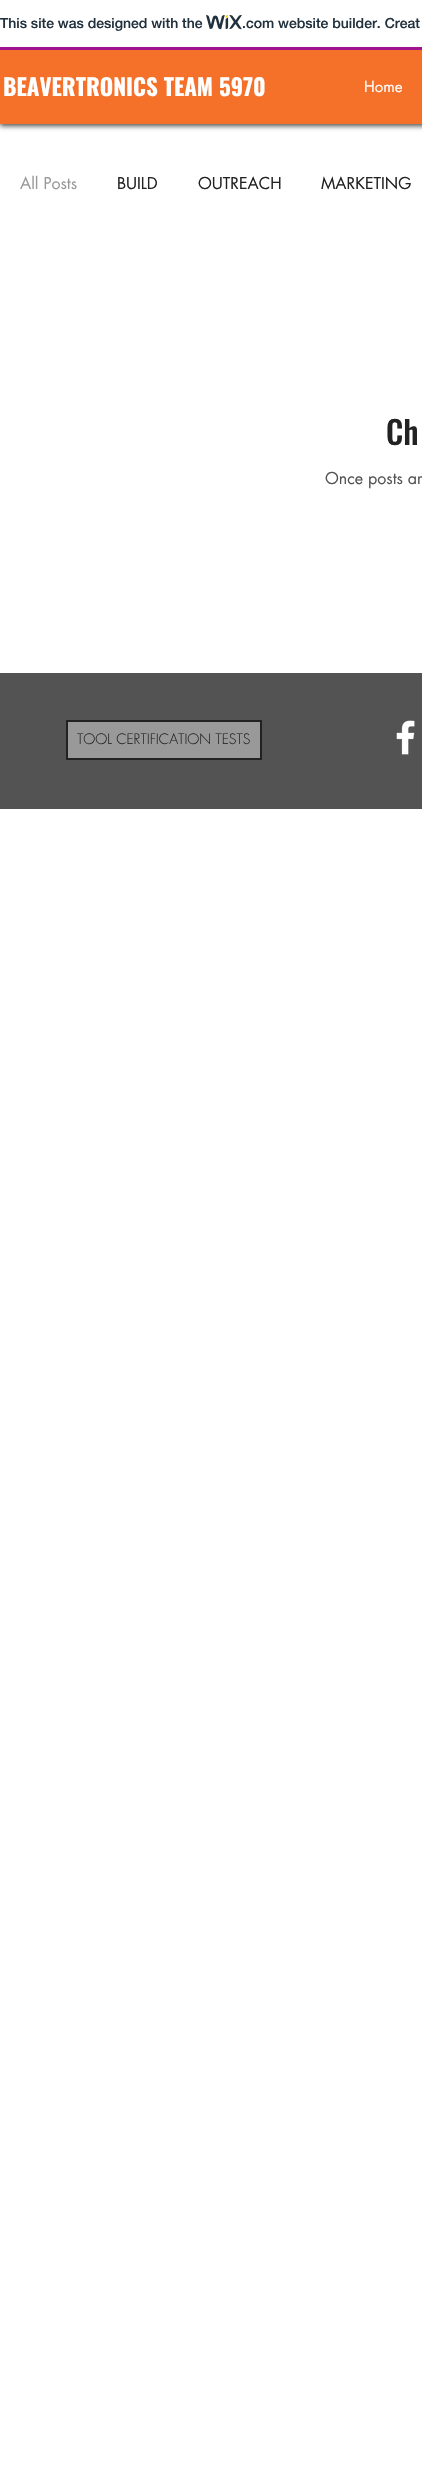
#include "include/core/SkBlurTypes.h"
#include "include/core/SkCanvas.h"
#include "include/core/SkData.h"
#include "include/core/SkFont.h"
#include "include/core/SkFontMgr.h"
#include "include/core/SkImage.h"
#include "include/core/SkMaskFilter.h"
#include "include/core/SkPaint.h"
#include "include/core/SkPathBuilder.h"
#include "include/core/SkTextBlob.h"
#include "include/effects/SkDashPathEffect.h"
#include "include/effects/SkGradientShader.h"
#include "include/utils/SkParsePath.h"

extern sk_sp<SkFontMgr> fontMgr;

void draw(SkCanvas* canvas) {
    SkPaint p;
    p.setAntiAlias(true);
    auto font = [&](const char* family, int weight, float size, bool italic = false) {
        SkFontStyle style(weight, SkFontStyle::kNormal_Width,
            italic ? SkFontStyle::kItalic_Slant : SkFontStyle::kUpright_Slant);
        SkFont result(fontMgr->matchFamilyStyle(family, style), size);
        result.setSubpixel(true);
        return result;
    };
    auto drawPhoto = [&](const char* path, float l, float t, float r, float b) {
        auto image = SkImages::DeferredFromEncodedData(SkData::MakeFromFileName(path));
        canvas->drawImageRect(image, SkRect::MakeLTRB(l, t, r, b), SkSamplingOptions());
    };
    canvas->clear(0xFFFFFFFF);
    p.setColor(0xB3000000);
    p.setMaskFilter(SkMaskFilter::MakeBlur(kNormal_SkBlurStyle, 2.5f));
    canvas->drawRect(SkRect::MakeLTRB(0, 52, 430, 126), p);
    p.setMaskFilter(nullptr);
    p.setColor(0xFFA0138E);
    canvas->drawRect(SkRect::MakeLTRB(0, 47, 422, 50), p);
    auto font1 = font("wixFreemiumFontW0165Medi", 500, 14);
    p.setColor(0xFF20303C);
    canvas->drawString("This site was designed with the", 0, 28, font1, p);
    drawPhoto("media/1.png", 206, 15, 242, 30);
    canvas->drawString(".com website builder. Creat", 242, 28, font1, p);
    p.setColor(0xFFF57029);
    canvas->drawRect(SkRect::MakeLTRB(0, 50, 422, 124), p);
    auto font2 = font("Oswald", 700, 23);
    p.setColor(0xFFFFFFFF);
    canvas->drawString("BEAVERTRONICS TEAM 5970", 3, 96, font2, p);
    auto font3 = font("futura", 400, 15);
    canvas->drawString("Home", 364, 92, font3, p);
    auto font4 = font("futura", 400, 16);
    p.setColor(0xFF999999);
    canvas->drawString("All Posts", 20, 189, font4, p);
    p.setColor(0xFF222222);
    {
        const struct { const char* s; float x, y; } items[] = {
            {"BUILD", 117, 189},
            {"OUTREACH", 198, 189},
            {"MARKETING", 321, 189},
        };
        for (auto [s, x, y] : items) {
            canvas->drawString(s, x, y, font4, p);
        }
    }
    auto font5 = font("Oswald", 500, 32);
    canvas->drawString("Ch", 386, 445, font5, p);
    p.setColor(0xFF535353);
    canvas->drawString("Once posts ar", 325, 484, font4, p);
    canvas->drawRect(SkRect::MakeLTRB(0, 673, 422, 809), p);
    p.setColor(0xFF999999);
    canvas->drawRect(SkRect::MakeLTRB(67, 721, 261, 759), p);
    p.setStyle(SkPaint::kStroke_Style);
    p.setStrokeWidth(2);
    p.setColor(0xFF222222);
    canvas->drawRect(SkRect::MakeLTRB(67, 721, 261, 759), p);
    auto font6 = font("futura", 300, 14);
    p.setStyle(SkPaint::kFill_Style);
    canvas->drawString("TOOL CERTIFICATION TESTS", 77, 744, font6, p);
    drawPhoto("media/2.png", 396, 720, 415, 755);
}
